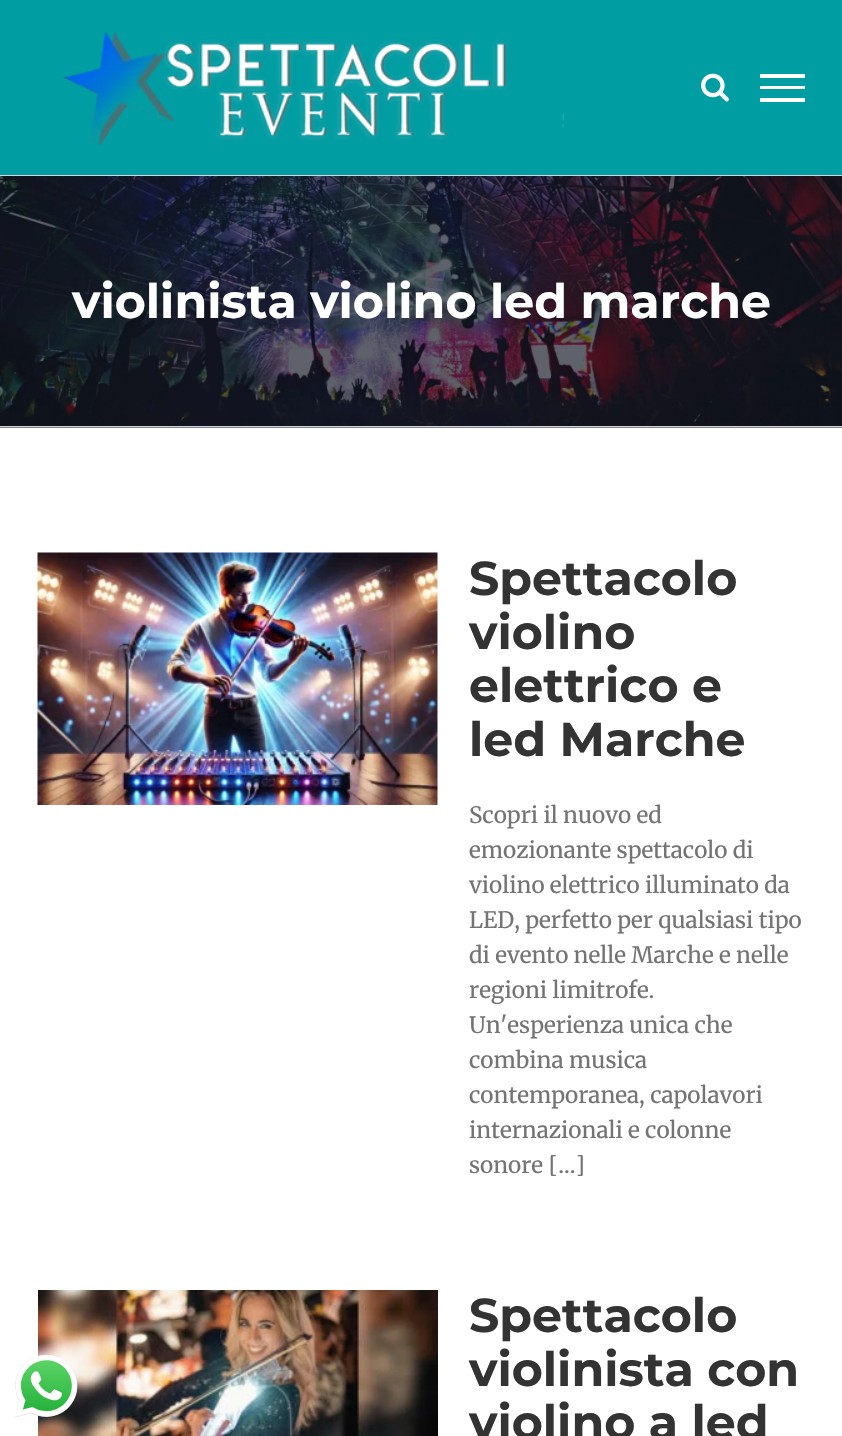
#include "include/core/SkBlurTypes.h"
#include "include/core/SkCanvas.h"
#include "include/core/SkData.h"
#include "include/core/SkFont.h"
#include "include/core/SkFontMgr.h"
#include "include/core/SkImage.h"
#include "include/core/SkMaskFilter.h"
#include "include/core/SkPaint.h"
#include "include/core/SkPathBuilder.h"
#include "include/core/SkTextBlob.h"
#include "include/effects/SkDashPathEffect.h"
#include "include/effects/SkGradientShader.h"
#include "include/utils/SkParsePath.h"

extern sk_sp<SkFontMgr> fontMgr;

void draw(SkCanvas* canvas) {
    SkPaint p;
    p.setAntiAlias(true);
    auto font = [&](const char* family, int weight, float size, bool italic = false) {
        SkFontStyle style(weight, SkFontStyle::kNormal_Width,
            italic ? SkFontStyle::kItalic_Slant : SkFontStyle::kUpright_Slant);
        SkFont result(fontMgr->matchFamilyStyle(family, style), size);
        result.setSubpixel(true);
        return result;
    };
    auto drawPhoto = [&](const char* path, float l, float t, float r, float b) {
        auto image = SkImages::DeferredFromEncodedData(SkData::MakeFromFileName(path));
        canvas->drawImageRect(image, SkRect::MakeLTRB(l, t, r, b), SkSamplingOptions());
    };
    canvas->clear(0xFFFFFFFF);
    drawPhoto("media/6.png", 38, 1290, 438, 1436);
    drawPhoto("media/1.png", 15, 1355, 78, 1418);
    p.setColor(0xFF009DA3);
    canvas->drawRect(SkRect::MakeLTRB(0, 0, 842, 175), p);
    drawPhoto("media/2.png", 63, 32, 564, 146);
    drawPhoto("media/3.png", 701, 73, 729, 102);
    {
        const struct { float l, t, r, b; SkColor color; } items[] = {
            {760, 74, 805, 78, 0xFFFFFFFF},
            {760, 86, 805, 89, 0xFFFFFFFF},
            {760, 98, 805, 102, 0xFFFFFFFF},
            {0, 427, 842, 428, 0xFFF6F6F6},
        };
        for (auto [l, t, r, b, color] : items) {
            p.setColor(color);
            canvas->drawRect(SkRect::MakeLTRB(l, t, r, b), p);
        }
    }
    drawPhoto("media/4.png", 0, 176, 842, 428);
    p.setColor(0xFFD2D3D4);
    canvas->drawRect(SkRect::MakeLTRB(0, 175, 842, 176), p);
    canvas->drawRect(SkRect::MakeLTRB(0, 426, 842, 427), p);
    auto font1 = font("Montserrat", 700, 47.5f);
    p.setColor(0xFFFFFFFF);
    canvas->drawString("violinista violino led marche", 72, 318, font1, p);
    drawPhoto("media/5.png", 37, 552, 438, 805);
    p.setColor(0xFF333333);
    {
        const struct { const char* s; float x, y; } items[] = {
            {"Spettacolo", 469, 595},
            {"violino", 469, 649},
            {"elettrico e", 469, 702},
            {"led Marche", 469, 756},
        };
        for (auto [s, x, y] : items) {
            canvas->drawString(s, x, y, font1, p);
        }
    }
    auto font2 = font("Merriweather", 400, 22.5f);
    p.setColor(0xFF747474);
    {
        const struct { const char* s; float x, y; } items[] = {
            {"Scopri il nuovo ed", 469, 823},
            {"emozionante spettacolo di", 469, 858},
            {"violino elettrico illuminato da", 469, 893},
            {"LED, perfetto per qualsiasi tipo", 469, 928},
            {"di evento nelle Marche e nelle", 469, 963},
            {"regioni limitrofe.", 469, 998},
            {"Un'esperienza unica che", 469, 1033},
            {"combina musica", 469, 1068},
            {"contemporanea, capolavori", 469, 1103},
            {"internazionali e colonne", 469, 1138},
            {"sonore [...]", 469, 1173},
        };
        for (auto [s, x, y] : items) {
            canvas->drawString(s, x, y, font2, p);
        }
    }
    p.setColor(0xFF333333);
    {
        const struct { const char* s; float x, y; } items[] = {
            {"Spettacolo", 469, 1332},
            {"violinista con", 469, 1386},
            {"violino a led", 469, 1439},
        };
        for (auto [s, x, y] : items) {
            canvas->drawString(s, x, y, font1, p);
        }
    }
}
